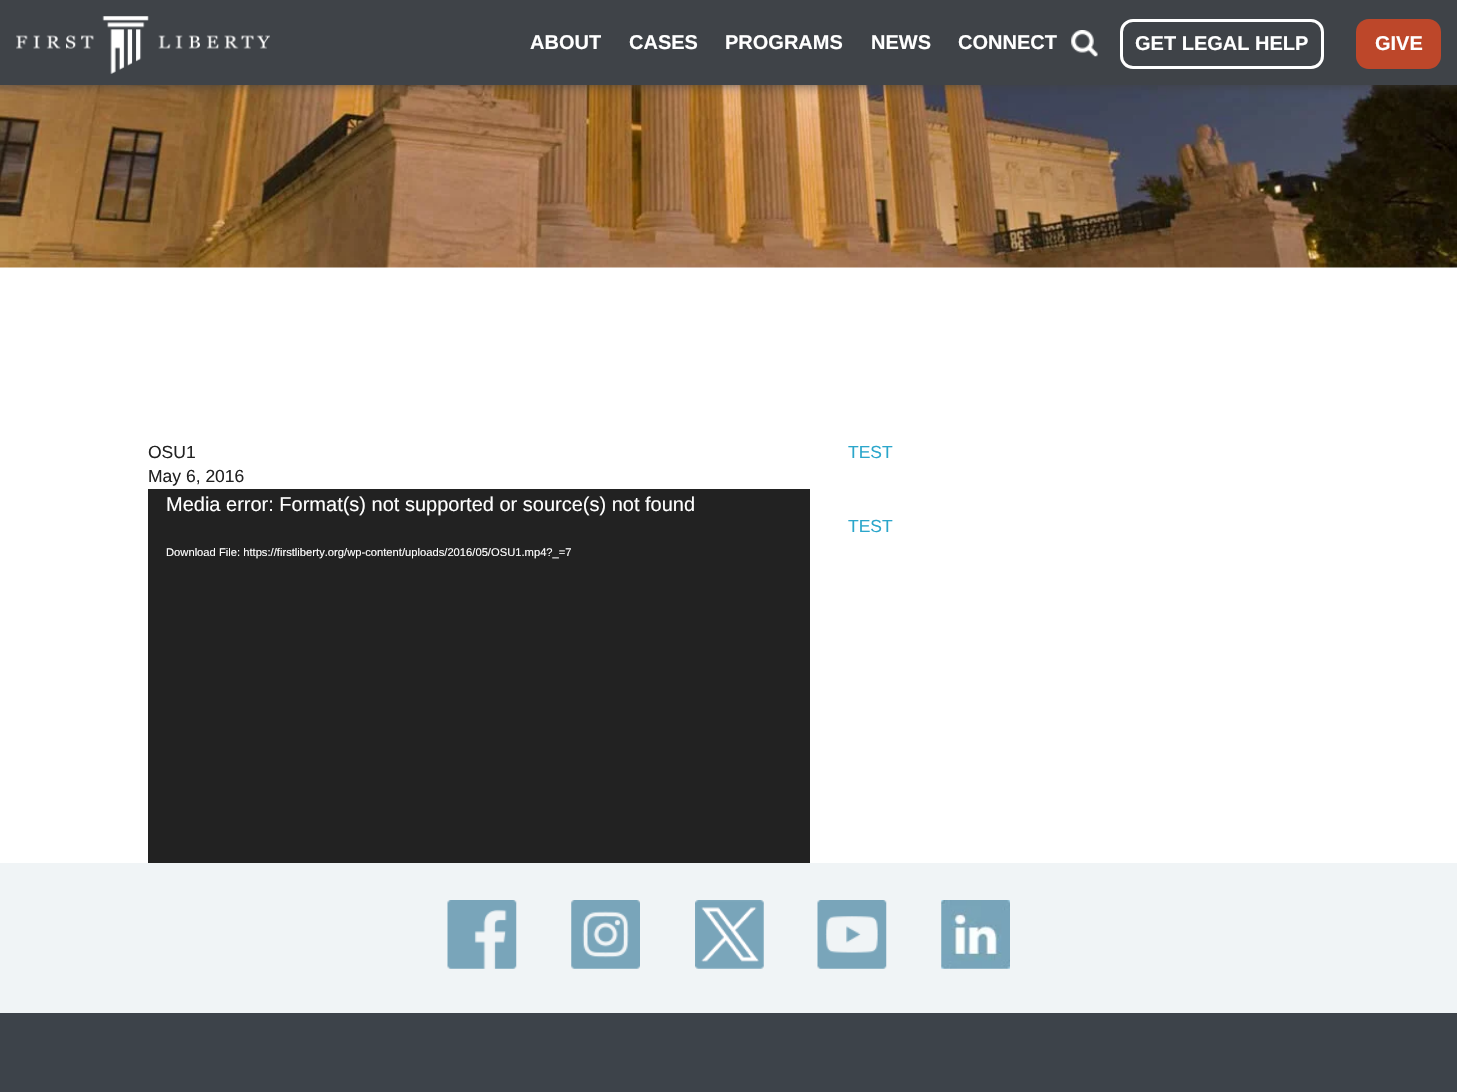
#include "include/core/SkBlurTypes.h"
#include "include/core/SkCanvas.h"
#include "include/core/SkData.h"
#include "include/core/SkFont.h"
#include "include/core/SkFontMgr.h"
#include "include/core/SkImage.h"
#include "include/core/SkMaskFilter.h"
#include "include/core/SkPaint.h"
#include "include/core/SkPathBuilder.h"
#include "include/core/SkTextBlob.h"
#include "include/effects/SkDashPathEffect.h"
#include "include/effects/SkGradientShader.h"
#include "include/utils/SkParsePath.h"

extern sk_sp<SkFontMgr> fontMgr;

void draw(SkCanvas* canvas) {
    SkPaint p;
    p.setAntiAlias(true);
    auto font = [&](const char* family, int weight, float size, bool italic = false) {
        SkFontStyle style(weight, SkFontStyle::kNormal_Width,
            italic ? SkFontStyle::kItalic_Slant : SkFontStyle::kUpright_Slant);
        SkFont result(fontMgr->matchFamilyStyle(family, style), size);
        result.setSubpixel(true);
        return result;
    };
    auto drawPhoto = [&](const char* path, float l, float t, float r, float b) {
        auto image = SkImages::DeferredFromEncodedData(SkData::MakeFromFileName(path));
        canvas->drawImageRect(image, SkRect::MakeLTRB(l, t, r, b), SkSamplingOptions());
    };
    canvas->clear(0xFFFFFFFF);
    drawPhoto("media/3.png", 0, 85, 1457, 268);
    p.setColor(0xFF404040);
    p.setMaskFilter(SkMaskFilter::MakeBlur(kNormal_SkBlurStyle, 6));
    canvas->drawRect(SkRect::MakeLTRB(-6, -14, 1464, 84), p);
    p.setMaskFilter(nullptr);
    p.setColor(0xFF3F4348);
    canvas->drawRect(SkRect::MakeLTRB(0, 0, 1457, 85), p);
    drawPhoto("media/1.png", 16, 16, 270, 74);
    auto font1 = font("Liberation Sans", 700, 20);
    p.setColor(0xFFFFFFFF);
    {
        const struct { const char* s; float x, y; } items[] = {
            {"ABOUT", 530, 49},
            {"CASES", 629, 49},
            {"PROGRAMS", 725, 49},
            {"NEWS", 871, 49},
            {"CONNECT", 958, 49},
        };
        for (auto [s, x, y] : items) {
            canvas->drawString(s, x, y, font1, p);
        }
    }
    drawPhoto("media/2.png", 1071, 30, 1098, 57);
    p.setStyle(SkPaint::kStroke_Style);
    p.setStrokeWidth(3);
    canvas->drawRoundRect(SkRect::MakeLTRB(1121.5f, 20.5f, 1322.5f, 67.5f), 11.5f, 11.5f, p);
    p.setStyle(SkPaint::kFill_Style);
    canvas->drawString("GET LEGAL HELP", 1135, 50, font1, p);
    p.setColor(0xFFBD472A);
    canvas->drawRoundRect(SkRect::MakeLTRB(1356, 19, 1441, 69), 13, 13, p);
    p.setColor(0xFFFFFFFF);
    canvas->drawString("GIVE", 1375, 50, font1, p);
    auto font2 = font("Liberation Sans", 400, 17.5f);
    p.setColor(0xFF222222);
    canvas->drawString("OSU1", 148, 458, font2, p);
    canvas->drawString("May 6, 2016", 148, 482, font2, p);
    canvas->drawRect(SkRect::MakeLTRB(148, 489, 810, 863), p);
    auto font3 = font("Liberation Sans", 400, 20);
    p.setColor(0xFFFFFFFF);
    canvas->drawString("Media error: Format(s) not supported or source(s) not found", 166, 511, font3, p);
    auto font4 = font("Liberation Sans", 400, 11.2f);
    canvas->drawString("Download File: https://firstliberty.org/wp-content/uploads/2016/05/OSU1.mp4?_=7", 166, 556, font4, p);
    p.setColor(0xFF2BA6CB);
    canvas->drawString("TEST", 848, 458, font2, p);
    canvas->drawString("TEST", 848, 532, font2, p);
    p.setColor(0xFFF0F4F6);
    canvas->drawRect(SkRect::MakeLTRB(0, 863, 1457, 1013), p);
    drawPhoto("media/4.png", 447, 900, 517, 969);
    drawPhoto("media/5.png", 571, 900, 640, 969);
    drawPhoto("media/6.png", 695, 900, 764, 969);
    drawPhoto("media/7.png", 817, 900, 887, 969);
    drawPhoto("media/8.png", 941, 900, 1010, 969);
    p.setColor(0xFF3D434A);
    canvas->drawRect(SkRect::MakeLTRB(0, 1013, 1457, 1092), p);
}
